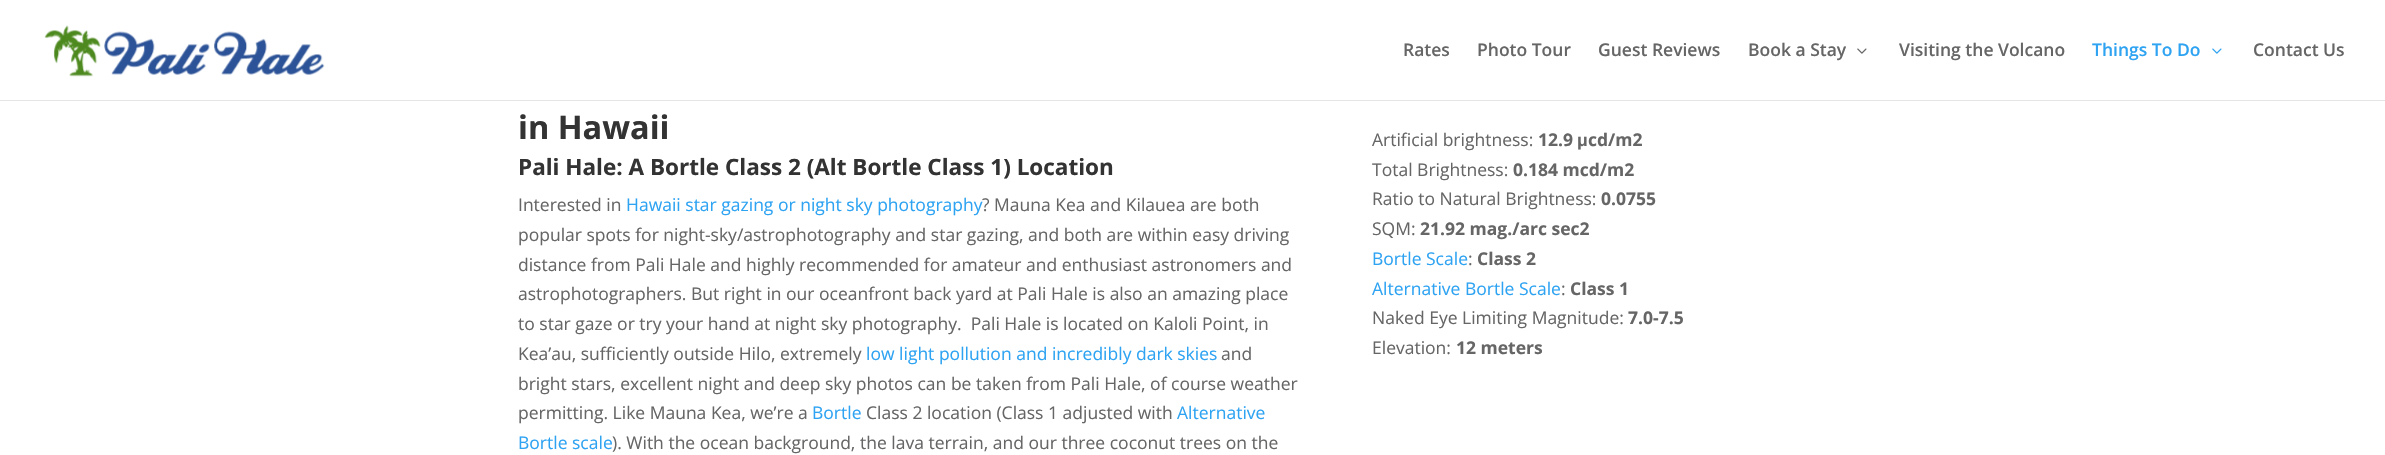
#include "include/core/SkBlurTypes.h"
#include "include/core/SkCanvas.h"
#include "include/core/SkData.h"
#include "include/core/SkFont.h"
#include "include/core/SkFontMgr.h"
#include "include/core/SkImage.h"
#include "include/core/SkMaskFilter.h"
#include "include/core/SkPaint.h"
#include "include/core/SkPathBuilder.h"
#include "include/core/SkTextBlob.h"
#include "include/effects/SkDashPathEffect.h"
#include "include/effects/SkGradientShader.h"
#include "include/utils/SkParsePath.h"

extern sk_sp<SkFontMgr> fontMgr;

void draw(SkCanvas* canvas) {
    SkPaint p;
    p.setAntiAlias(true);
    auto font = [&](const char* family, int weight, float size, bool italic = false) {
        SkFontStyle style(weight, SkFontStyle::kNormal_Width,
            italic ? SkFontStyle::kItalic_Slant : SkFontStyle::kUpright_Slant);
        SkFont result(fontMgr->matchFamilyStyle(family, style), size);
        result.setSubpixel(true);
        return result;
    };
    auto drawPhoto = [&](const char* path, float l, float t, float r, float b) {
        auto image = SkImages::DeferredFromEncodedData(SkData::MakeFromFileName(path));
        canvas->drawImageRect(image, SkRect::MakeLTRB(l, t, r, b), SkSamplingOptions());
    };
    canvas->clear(0xFFFFFFFF);
    p.setColor(0x1A000000);
    canvas->drawRect(SkRect::MakeLTRB(0, 100, 2385, 101), p);
    drawPhoto("media/1.png", 44, 25, 325, 77);
    auto font1 = font("Open Sans", 600, 17.5f);
    p.setColor(0xFF666666);
    {
        const struct { const char* s; float x, y; } items[] = {
            {"Rates", 1403, 56},
            {"Photo Tour", 1477, 56},
            {"Guest Reviews", 1598, 56},
            {"Book a Stay", 1748, 56},
        };
        for (auto [s, x, y] : items) {
            canvas->drawString(s, x, y, font1, p);
        }
    }
    drawPhoto("media/2.png", 1857, 48, 1867, 54);
    canvas->drawString("Visiting the Volcano", 1899, 56, font1, p);
    p.setColor(0xFF2EA3F2);
    canvas->drawString("Things To Do", 2092, 56, font1, p);
    drawPhoto("media/3.png", 2212, 48, 2222, 54);
    p.setColor(0xFF666666);
    canvas->drawString("Contact Us", 2253, 56, font1, p);
    auto font2 = font("Open Sans", 700, 32.5f);
    p.setColor(0xFF333333);
    canvas->drawString("in Hawaii", 518, 139, font2, p);
    auto font3 = font("Open Sans", 700, 22.5f);
    canvas->drawString("Pali Hale: A Bortle Class 2 (Alt Bortle Class 1) Location", 518, 175, font3, p);
    auto font4 = font("Open Sans", 400, 17.5f);
    p.setColor(0xFF666666);
    canvas->drawString("Interested in", 518, 211, font4, p);
    p.setColor(0xFF2EA3F2);
    canvas->drawString("Hawaii star gazing or night sky photography", 626, 211, font4, p);
    p.setColor(0xFF666666);
    {
        const struct { const char* s; float x, y; } items[] = {
            {"? Mauna Kea and Kilauea are both", 982, 211},
            {"popular spots for night-sky/astrophotography and star gazing, and both are within easy driving", 518, 241},
            {"distance from Pali Hale and highly recommended for amateur and enthusiast astronomers and", 518, 271},
            {"astrophotographers. But right in our oceanfront back yard at Pali Hale is also an amazing place", 518, 300},
            {"to star gaze or try your hand at night sky photography.  Pali Hale is located on Kaloli Point, in", 518, 330},
            {"Kea’au, sufficiently outside Hilo, extremely", 518, 360},
        };
        for (auto [s, x, y] : items) {
            canvas->drawString(s, x, y, font4, p);
        }
    }
    p.setColor(0xFF2EA3F2);
    canvas->drawString("low light pollution and incredibly dark skies", 866, 360, font4, p);
    p.setColor(0xFF666666);
    {
        const struct { const char* s; float x, y; } items[] = {
            {"and", 1221, 360},
            {"bright stars, excellent night and deep sky photos can be taken from Pali Hale, of course weather", 518, 390},
            {"permitting. Like Mauna Kea, we’re a", 518, 419},
        };
        for (auto [s, x, y] : items) {
            canvas->drawString(s, x, y, font4, p);
        }
    }
    p.setColor(0xFF2EA3F2);
    canvas->drawString("Bortle", 812, 419, font4, p);
    p.setColor(0xFF666666);
    canvas->drawString("Class 2 location (Class 1 adjusted with", 866, 419, font4, p);
    p.setColor(0xFF2EA3F2);
    canvas->drawString("Alternative", 1177, 419, font4, p);
    canvas->drawString("Bortle scale", 518, 449, font4, p);
    p.setColor(0xFF666666);
    canvas->drawString("). With the ocean background, the lava terrain, and our three coconut trees on the", 612, 449, font4, p);
    canvas->drawString("Artificial brightness:", 1372, 146, font4, p);
    auto font5 = font("Open Sans", 700, 17.5f);
    canvas->drawString("12.9", 1538, 146, font5, p);
    auto font6 = font("Liberation Sans", 700, 17.5f);
    canvas->drawString("μ", 1577, 146, font6, p);
    canvas->drawString("cd/m2", 1588, 146, font5, p);
    canvas->drawString("Total Brightness:", 1372, 176, font4, p);
    canvas->drawString("0.184 mcd/m2", 1513, 176, font5, p);
    canvas->drawString("Ratio to Natural Brightness:", 1372, 205, font4, p);
    canvas->drawString("0.0755", 1601, 205, font5, p);
    canvas->drawString("SQM:", 1372, 235, font4, p);
    canvas->drawString("21.92 mag./arc sec2", 1420, 235, font5, p);
    p.setColor(0xFF2EA3F2);
    canvas->drawString("Bortle Scale", 1372, 265, font4, p);
    p.setColor(0xFF666666);
    canvas->drawString(":", 1468, 265, font4, p);
    canvas->drawString("Class 2", 1477, 265, font5, p);
    p.setColor(0xFF2EA3F2);
    canvas->drawString("Alternative Bortle Scale", 1372, 295, font4, p);
    p.setColor(0xFF666666);
    canvas->drawString(":", 1561, 295, font4, p);
    canvas->drawString("Class 1", 1570, 295, font5, p);
    canvas->drawString("Naked Eye Limiting Magnitude:", 1372, 324, font4, p);
    canvas->drawString("7.0-7.5", 1628, 324, font5, p);
    canvas->drawString("Elevation:", 1372, 354, font4, p);
    canvas->drawString("12 meters", 1456, 354, font5, p);
}
